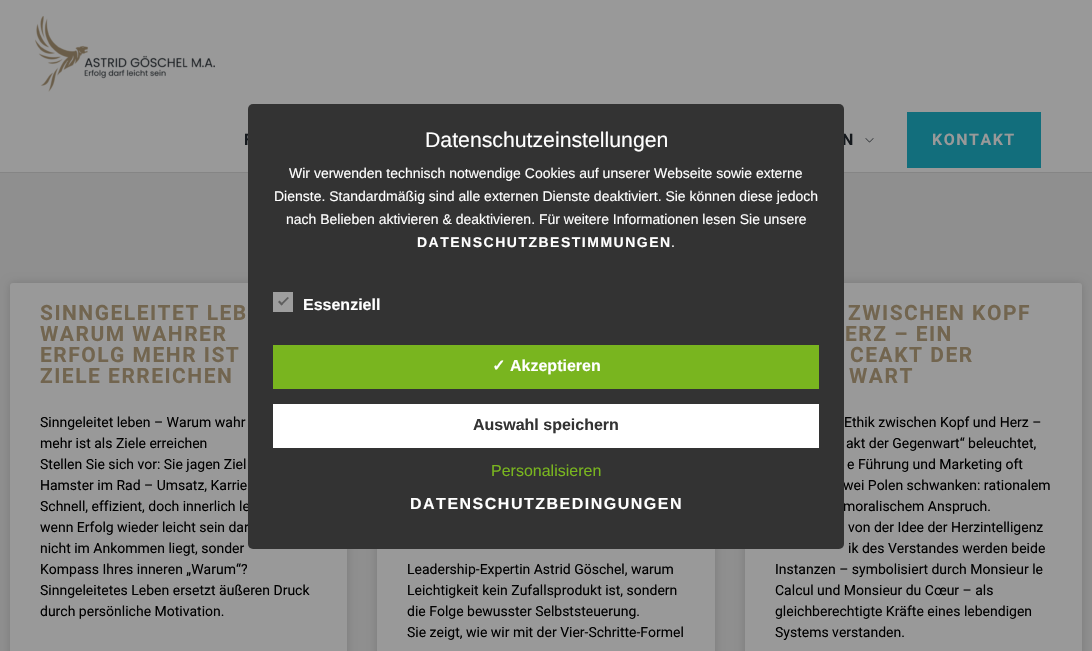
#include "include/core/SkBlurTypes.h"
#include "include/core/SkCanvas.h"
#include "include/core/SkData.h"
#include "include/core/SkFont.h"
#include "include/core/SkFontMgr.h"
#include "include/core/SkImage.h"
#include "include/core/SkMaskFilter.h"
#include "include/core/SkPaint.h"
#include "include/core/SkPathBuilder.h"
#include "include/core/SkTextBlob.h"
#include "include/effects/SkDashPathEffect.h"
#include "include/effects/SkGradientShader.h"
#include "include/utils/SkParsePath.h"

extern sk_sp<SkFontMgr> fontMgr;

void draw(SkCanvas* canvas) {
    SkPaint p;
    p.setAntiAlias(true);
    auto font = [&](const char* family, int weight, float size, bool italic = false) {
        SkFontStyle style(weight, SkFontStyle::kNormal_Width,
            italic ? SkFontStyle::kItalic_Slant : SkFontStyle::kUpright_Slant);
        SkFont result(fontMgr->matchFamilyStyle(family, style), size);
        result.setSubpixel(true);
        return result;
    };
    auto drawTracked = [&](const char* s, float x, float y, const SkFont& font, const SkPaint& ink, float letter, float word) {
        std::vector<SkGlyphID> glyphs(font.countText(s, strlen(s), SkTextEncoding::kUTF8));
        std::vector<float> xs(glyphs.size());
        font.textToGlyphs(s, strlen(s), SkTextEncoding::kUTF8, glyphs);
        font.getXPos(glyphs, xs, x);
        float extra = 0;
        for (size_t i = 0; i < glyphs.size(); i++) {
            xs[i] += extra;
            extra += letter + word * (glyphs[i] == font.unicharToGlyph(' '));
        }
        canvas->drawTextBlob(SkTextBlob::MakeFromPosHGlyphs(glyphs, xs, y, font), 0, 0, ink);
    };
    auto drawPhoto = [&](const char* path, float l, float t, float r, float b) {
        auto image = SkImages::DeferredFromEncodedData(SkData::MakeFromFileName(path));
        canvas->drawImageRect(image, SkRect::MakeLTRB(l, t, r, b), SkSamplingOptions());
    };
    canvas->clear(0xFF999999);
    p.setColor(0xFF858585);
    canvas->drawRect(SkRect::MakeLTRB(0, 172, 1092, 173), p);
    auto font1 = font("Roboto", 700, 16);
    p.setColor(0xFF15191D);
    drawTracked("F", 244, 145, font1, p, 1.5f, 0);
    drawTracked("N", 842, 145, font1, p, 1.5f, 0);
    p.setColor(0xFF8F8F8F);
    canvas->drawRect(SkRect::MakeLTRB(0, 173, 1092, 651), p);
    p.setColor(0x26000000);
    p.setMaskFilter(SkMaskFilter::MakeBlur(kNormal_SkBlurStyle, 5));
    canvas->drawRoundRect(SkRect::MakeLTRB(10, 283, 347, 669), 3, 3, p);
    p.setMaskFilter(nullptr);
    p.setColor(0xFF999999);
    canvas->drawRoundRect(SkRect::MakeLTRB(10, 283, 347, 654), 3, 3, p);
    auto font2 = font("Roboto", 400, 14);
    p.setColor(0xFF000000);
    canvas->drawString("Schnell, effizient, doch innerlich le", 40, 511, font2, p);
    canvas->drawString("wenn Erfolg wieder leicht sein dar", 40, 532, font2, p);
    p.setColor(0x26000000);
    p.setMaskFilter(SkMaskFilter::MakeBlur(kNormal_SkBlurStyle, 5));
    canvas->drawRoundRect(SkRect::MakeLTRB(377, 283, 715, 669), 3, 3, p);
    p.setMaskFilter(nullptr);
    p.setMaskFilter(SkMaskFilter::MakeBlur(kNormal_SkBlurStyle, 5));
    canvas->drawRoundRect(SkRect::MakeLTRB(745, 283, 1082, 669), 3, 3, p);
    p.setMaskFilter(nullptr);
    p.setColor(0xFF999999);
    canvas->drawRoundRect(SkRect::MakeLTRB(745, 283, 1082, 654), 3, 3, p);
    p.setColor(0xFF000000);
    canvas->drawString("wei Polen schwanken: rationalem", 843, 490, font2, p);
    canvas->drawString("moralischem Anspruch.", 843, 511, font2, p);
    p.setColor(0xFF333333);
    canvas->drawRoundRect(SkRect::MakeLTRB(248, 104, 844, 549), 5, 5, p);
    auto font3 = font("Liberation Sans", 400, 21.25f);
    p.setColor(0xFFFFFFFF);
    canvas->drawString("Datenschutzeinstellungen", 425, 147, font3, p);
    auto font4 = font("Liberation Sans", 400, 14);
    {
        const struct { const char* s; float x, y; } items[] = {
            {"Wir verwenden technisch notwendige Cookies auf unserer Webseite sowie externe", 289, 178},
            {"Dienste. Standardmäßig sind alle externen Dienste deaktiviert. Sie können diese jedoch", 274, 201},
            {"nach Belieben aktivieren & deaktivieren. Für weitere Informationen lesen Sie unsere", 286, 224},
        };
        for (auto [s, x, y] : items) {
            canvas->drawString(s, x, y, font4, p);
        }
    }
    auto font5 = font("Liberation Sans", 700, 14);
    drawTracked("DATENSCHUTZBESTIMMUNGEN", 417, 247, font5, p, 1.5f, 0);
    canvas->drawString(".", 671, 247, font4, p);
    p.setColor(0xFF9E9E9E);
    canvas->drawRect(SkRect::MakeLTRB(273, 292, 293, 312), p);
    p.setColor(0xFF5E5E5E);
    canvas->drawPath(SkPathBuilder().moveTo(287.5f, 297).lineTo(289, 298).lineTo(281.5f, 305.5f).lineTo(280.5f, 304).close().detach(), p);
    canvas->drawPath(SkPathBuilder().moveTo(279.5f, 300.5f).lineTo(283, 304).lineTo(281.5f, 305.5f).lineTo(278, 302).close().detach(), p);
    auto font6 = font("Liberation Sans", 700, 16);
    p.setColor(0xFFFFFFFF);
    canvas->drawString("Essenziell", 303, 310, font6, p);
    p.setColor(0xFF79B51F);
    canvas->drawRect(SkRect::MakeLTRB(273, 345, 819, 389), p);
    auto font7 = font("DejaVu Sans", 700, 16);
    p.setColor(0xFFFFFFFF);
    canvas->drawString("✓", 492, 371, font7, p);
    canvas->drawString("Akzeptieren", 510, 371, font6, p);
    canvas->drawRect(SkRect::MakeLTRB(273, 404, 819, 448), p);
    p.setColor(0xFF333333);
    canvas->drawString("Auswahl speichern", 473, 430, font6, p);
    auto font8 = font("Liberation Sans", 400, 16);
    p.setColor(0xFF79B51F);
    canvas->drawString("Personalisieren", 491, 476, font8, p);
    p.setColor(0xFFFFFFFF);
    drawTracked("DATENSCHUTZBEDINGUNGEN", 410, 509, font6, p, 1.5f, 0);
    drawPhoto("media/1.png", 35, 16, 215, 92);
    drawPhoto("media/2.png", 865, 138, 874, 143);
    p.setColor(0xFF126E7C);
    canvas->drawRect(SkRect::MakeLTRB(907, 112, 1041, 168), p);
    p.setColor(0xFF999999);
    drawTracked("KONTAKT", 932, 145, font1, p, 1.5f, 0);
    auto font9 = font("Roboto", 700, 21);
    p.setColor(0xFF72654F);
    {
        const struct { const char* s; float x, y; } items[] = {
            {"SINNGELEITET LEB", 40, 320},
            {"WARUM WAHRER", 40, 341},
            {"ERFOLG MEHR IST", 40, 362},
            {"ZIELE ERREICHEN", 40, 383},
        };
        for (auto [s, x, y] : items) {
            drawTracked(s, x, y, font9, p, 1.5f, 0);
        }
    }
    p.setColor(0xFF000000);
    {
        const struct { const char* s; float x, y; } items[] = {
            {"Sinngeleitet leben – Warum wahr", 40, 427},
            {"mehr ist als Ziele erreichen", 40, 448},
            {"Stellen Sie sich vor: Sie jagen Ziel", 40, 469},
            {"Hamster im Rad – Umsatz, Karrie", 40, 490},
            {"nicht im Ankommen liegt, sonder", 40, 553},
            {"Kompass Ihres inneren „Warum“?", 40, 574},
            {"Sinngeleitetes Leben ersetzt äußeren Druck", 40, 595},
            {"durch persönliche Motivation.", 40, 616},
        };
        for (auto [s, x, y] : items) {
            canvas->drawString(s, x, y, font2, p);
        }
    }
    p.setColor(0xFF999999);
    canvas->drawRect(SkRect::MakeLTRB(377, 549, 715, 651), p);
    p.setColor(0xFF000000);
    {
        const struct { const char* s; float x, y; } items[] = {
            {"Leadership-Expertin Astrid Göschel, warum", 407, 574},
            {"Leichtigkeit kein Zufallsprodukt ist, sondern", 407, 595},
            {"die Folge bewusster Selbststeuerung.", 407, 616},
            {"Sie zeigt, wie wir mit der Vier-Schritte-Formel", 407, 637},
        };
        for (auto [s, x, y] : items) {
            canvas->drawString(s, x, y, font2, p);
        }
    }
    p.setColor(0xFF72654F);
    {
        const struct { const char* s; float x, y; } items[] = {
            {"ZWISCHEN KOPF", 848, 320},
            {"ERZ – EIN", 845, 341},
            {"CEAKT DER", 850, 362},
            {"WART", 849, 383},
        };
        for (auto [s, x, y] : items) {
            drawTracked(s, x, y, font9, p, 1.5f, 0);
        }
    }
    p.setColor(0xFF000000);
    {
        const struct { const char* s; float x, y; } items[] = {
            {"Ethik zwischen Kopf und Herz –", 844, 427},
            {"akt der Gegenwart“ beleuchtet,", 846, 448},
            {"e Führung und Marketing oft", 847, 469},
            {"von der Idee der Herzintelligenz", 848, 532},
            {"ik des Verstandes werden beide", 848, 553},
            {"Instanzen – symbolisiert durch Monsieur le", 775, 574},
            {"Calcul und Monsieur du Cœur – als", 775, 595},
            {"gleichberechtigte Kräfte eines lebendigen", 775, 616},
            {"Systems verstanden.", 775, 637},
        };
        for (auto [s, x, y] : items) {
            canvas->drawString(s, x, y, font2, p);
        }
    }
}
